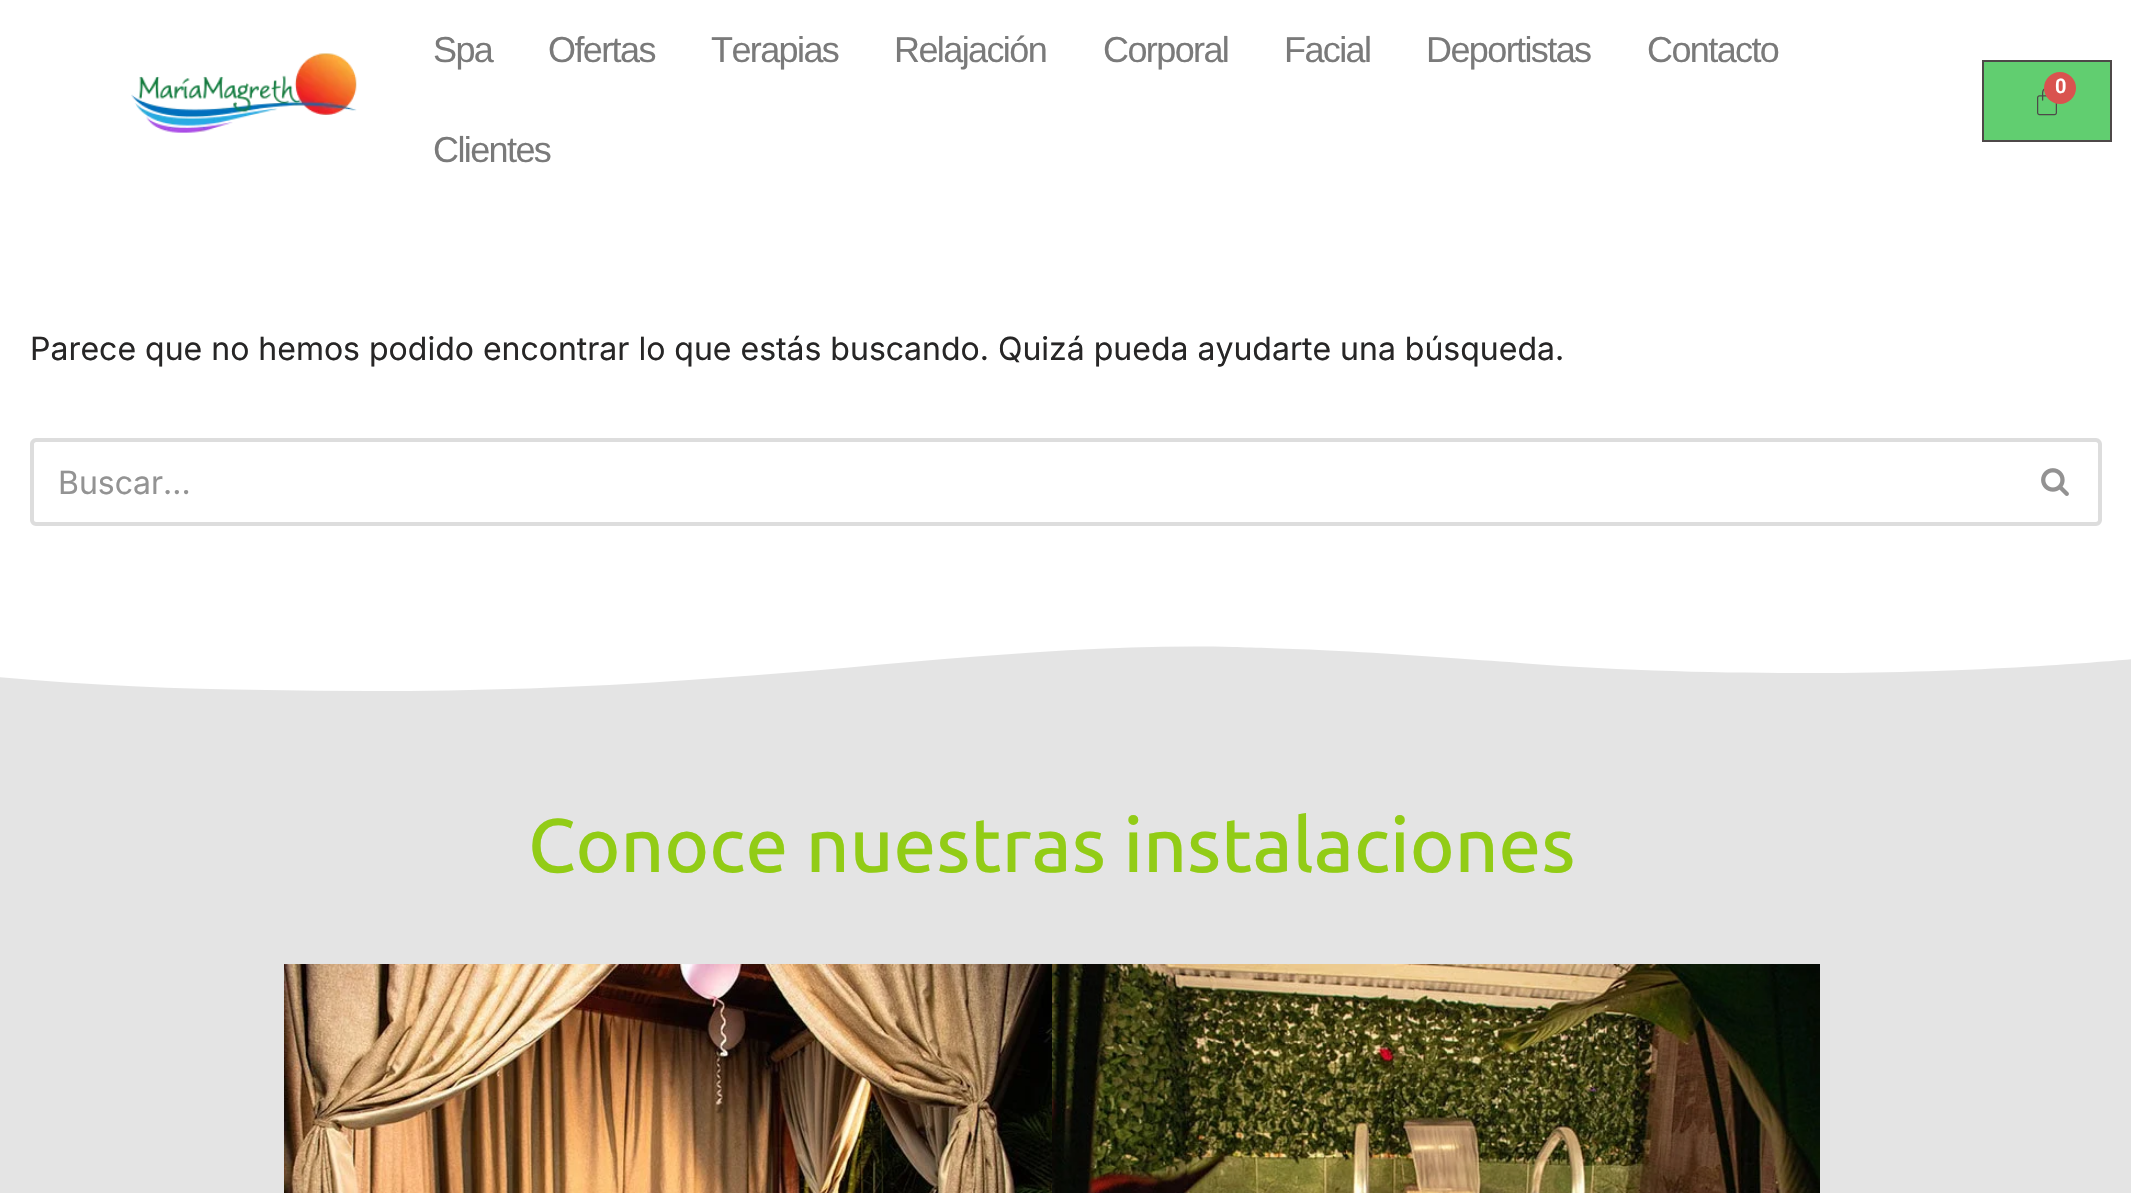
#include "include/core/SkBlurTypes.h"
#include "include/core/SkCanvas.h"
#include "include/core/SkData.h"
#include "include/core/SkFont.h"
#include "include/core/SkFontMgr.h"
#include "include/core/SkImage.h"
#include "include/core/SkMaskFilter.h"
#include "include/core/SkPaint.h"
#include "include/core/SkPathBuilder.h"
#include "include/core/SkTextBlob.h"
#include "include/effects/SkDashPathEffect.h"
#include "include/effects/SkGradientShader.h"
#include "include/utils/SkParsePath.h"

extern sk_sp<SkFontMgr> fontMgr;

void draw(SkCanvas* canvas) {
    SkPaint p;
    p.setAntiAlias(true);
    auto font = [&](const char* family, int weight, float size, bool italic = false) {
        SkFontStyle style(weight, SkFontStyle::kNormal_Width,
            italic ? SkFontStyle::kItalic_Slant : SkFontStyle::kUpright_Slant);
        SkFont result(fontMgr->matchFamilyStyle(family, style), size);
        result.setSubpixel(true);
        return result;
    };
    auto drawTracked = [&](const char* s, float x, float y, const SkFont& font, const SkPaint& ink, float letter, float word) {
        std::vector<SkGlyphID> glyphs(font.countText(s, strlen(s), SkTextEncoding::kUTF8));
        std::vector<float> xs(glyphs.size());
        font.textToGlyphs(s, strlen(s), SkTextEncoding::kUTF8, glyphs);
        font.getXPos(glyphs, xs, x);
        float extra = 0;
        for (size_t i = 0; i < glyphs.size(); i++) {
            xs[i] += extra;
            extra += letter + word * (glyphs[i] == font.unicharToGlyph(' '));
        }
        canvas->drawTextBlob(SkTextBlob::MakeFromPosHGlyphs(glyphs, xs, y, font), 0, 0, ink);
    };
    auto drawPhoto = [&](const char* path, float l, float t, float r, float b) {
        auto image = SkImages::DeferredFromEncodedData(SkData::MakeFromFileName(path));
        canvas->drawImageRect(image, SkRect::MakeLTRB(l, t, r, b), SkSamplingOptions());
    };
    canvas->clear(0xFFFFFFFF);
    drawPhoto("media/1.png", 131, 53, 357, 133);
    auto font1 = font("Liberation Sans", 400, 36);
    p.setColor(0xFF7A7A7A);
    {
        const struct { const char* s; float x, y; } items[] = {
            {"Spa", 433, 62},
            {"Ofertas", 548, 62},
            {"Terapias", 711, 62},
            {"Relajación", 894, 62},
            {"Corporal", 1103, 62},
            {"Facial", 1284, 62},
            {"Deportistas", 1426, 62},
            {"Contacto", 1647, 62},
            {"Clientes", 433, 162},
        };
        for (auto [s, x, y] : items) {
            drawTracked(s, x, y, font1, p, -1.6f, 0);
        }
    }
    p.setColor(0xFF61CE70);
    canvas->drawRect(SkRect::MakeLTRB(1983, 61, 2111, 141), p);
    p.setStyle(SkPaint::kStroke_Style);
    p.setStrokeWidth(2);
    p.setColor(0xFF4D4848);
    canvas->drawRect(SkRect::MakeLTRB(1983, 61, 2111, 141), p);
    drawPhoto("media/2.png", 2037, 88, 2057, 116);
    p.setStyle(SkPaint::kFill_Style);
    p.setColor(0xFFD9534F);
    canvas->drawCircle(2060, 88, 16, p);
    auto font2 = font("Roboto", 600, 20);
    p.setColor(0xFFFFFFFF);
    canvas->drawString("0", 2055, 93, font2, p);
    auto font3 = font("Inter", 400, 32);
    p.setColor(0xFF272626);
    canvas->drawString("Parece que no hemos podido encontrar lo que estás buscando. Quizá pueda ayudarte una búsqueda.", 30, 360, font3, p);
    p.setColor(0xFFDDDDDD);
    canvas->drawPath(SkPathBuilder(SkPathFillType::kEvenOdd).moveTo(36, 438).lineTo(2012, 438).lineTo(2012, 526).lineTo(36, 526).cubicTo(33, 526, 30, 523, 30, 520).lineTo(30, 444).cubicTo(30, 441, 33, 438, 36, 438).close().moveTo(36, 442).lineTo(2012, 442).lineTo(2012, 522).lineTo(36, 522).cubicTo(35, 522, 34, 521, 34, 520).lineTo(34, 444).cubicTo(34, 443, 35, 442, 36, 442).close().detach(), p);
    p.setColor(0xFF939393);
    canvas->drawString("Buscar...", 58, 494, font3, p);
    p.setColor(0xFFDDDDDD);
    canvas->drawPath(SkPathBuilder(SkPathFillType::kEvenOdd).moveTo(2012, 438).lineTo(2096, 438).cubicTo(2099, 438, 2102, 441, 2102, 444).lineTo(2102, 520).cubicTo(2102, 523, 2099, 526, 2096, 526).lineTo(2012, 526).close().moveTo(2012, 442).lineTo(2096, 442).cubicTo(2097, 442, 2098, 443, 2098, 444).lineTo(2098, 520).cubicTo(2098, 521, 2097, 522, 2096, 522).lineTo(2012, 522).close().detach(), p);
    drawPhoto("media/3.png", 2041, 468, 2069, 496);
    p.setColor(0xFFE4E4E4);
    canvas->drawRect(SkRect::MakeLTRB(0, 646, 2131, 1193), p);
    p.setColor(0xFFFFFFFF);
    canvas->drawPath(SkPathBuilder().moveTo(1233, 647).cubicTo(1051, 643, 870, 669, 689, 680).cubicTo(548, 690, 407, 693, 266, 690).cubicTo(177, 689, 87, 685, -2, 677).lineTo(-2, 644).lineTo(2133, 644).lineTo(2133, 659).cubicTo(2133, 659, 1980, 674, 1795, 673).cubicTo(1712, 673, 1597, 670, 1509, 662).cubicTo(1464, 659, 1398, 654, 1339, 651).cubicTo(1281, 648, 1255, 648, 1233, 647).close().detach(), p);
    auto font4 = font("Ubuntu", 500, 76);
    p.setColor(0xFF92CC16);
    canvas->drawString("Conoce nuestras instalaciones", 528, 872, font4, p);
    drawPhoto("media/4.png", 284, 964, 1052, 1193);
    drawPhoto("media/5.png", 1052, 964, 1820, 1193);
}
